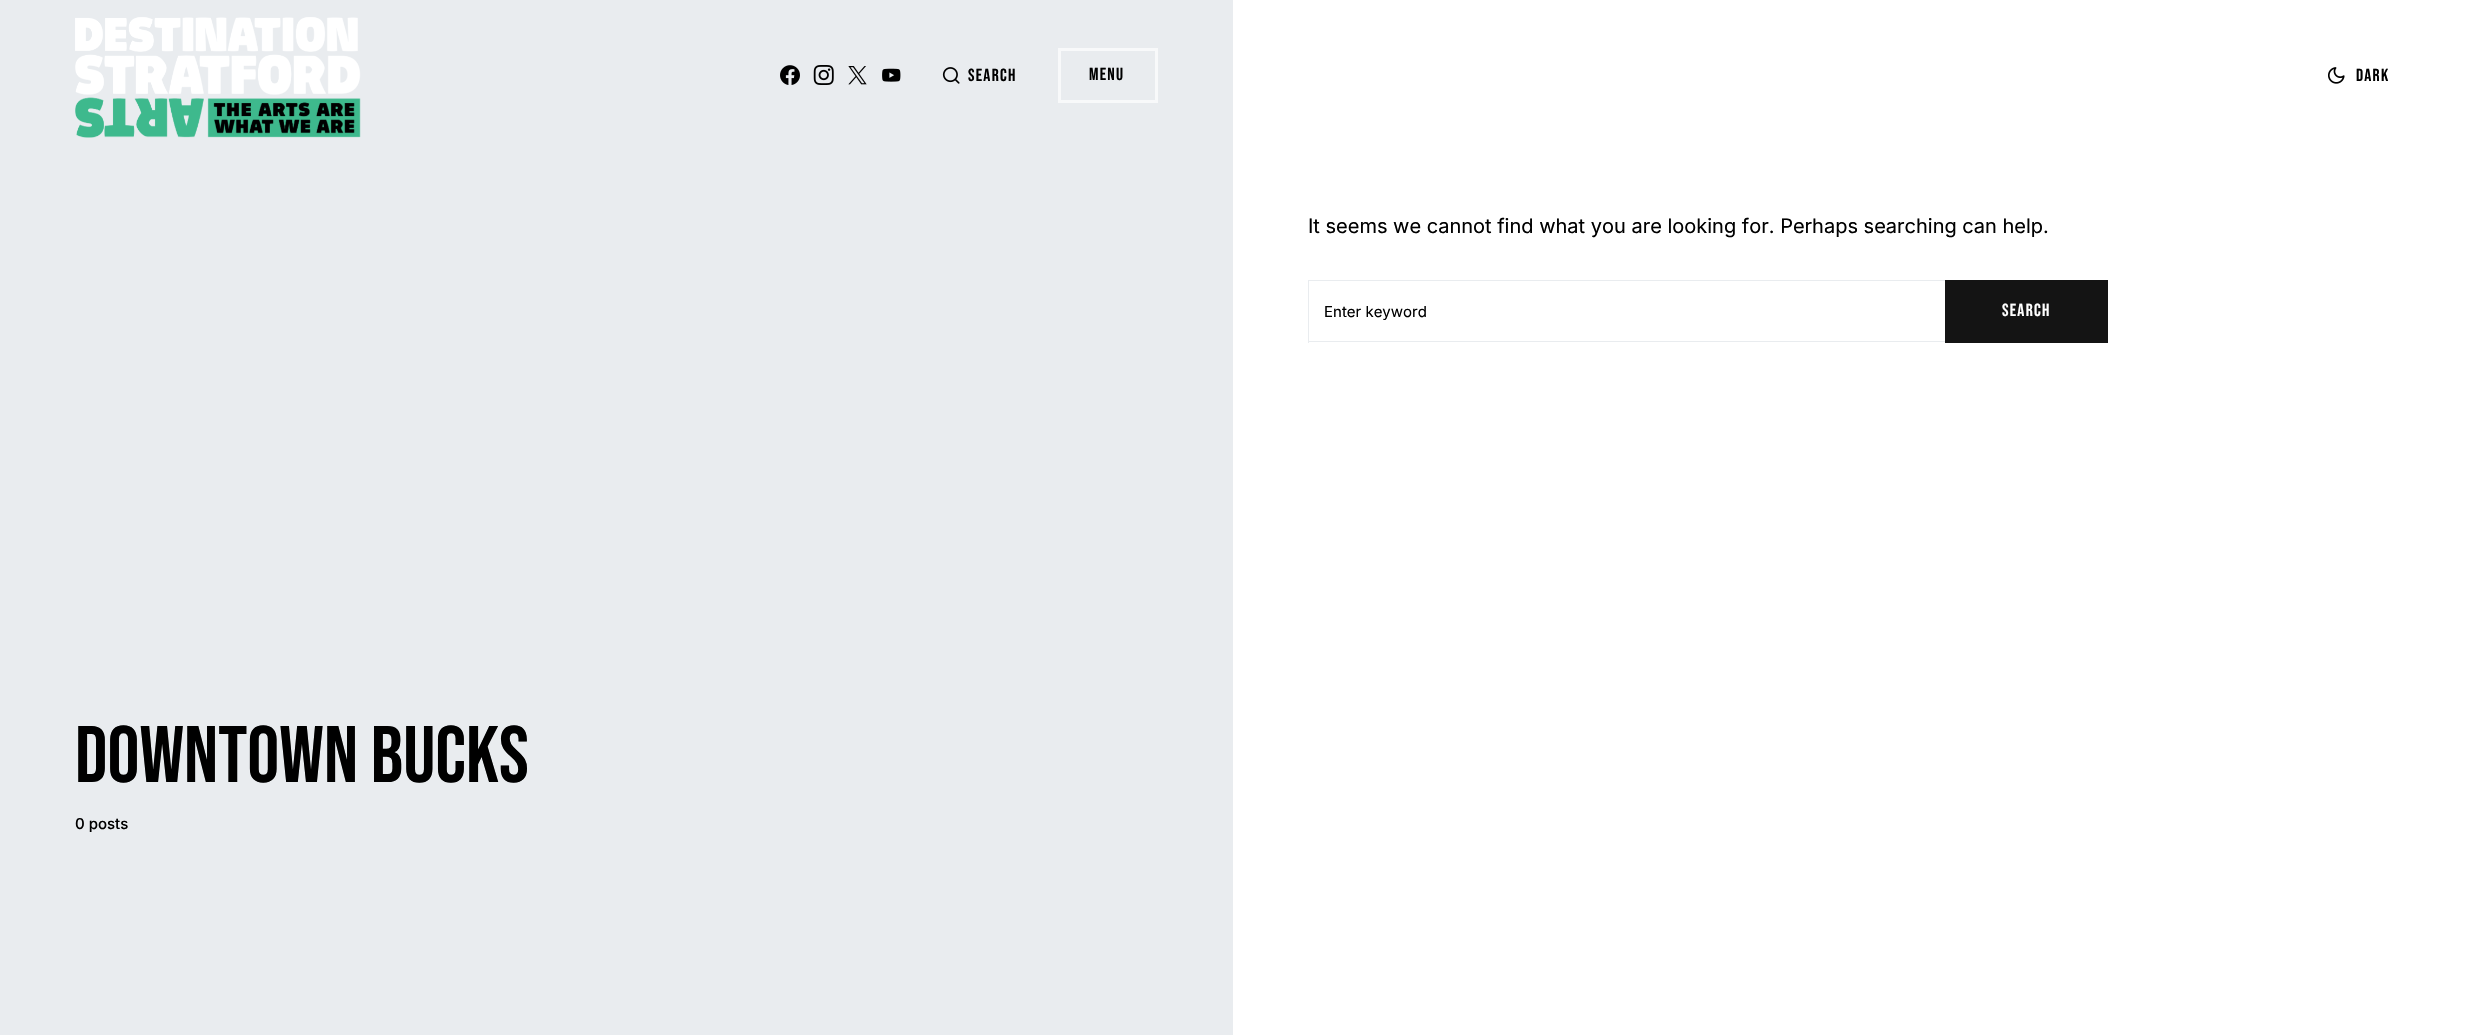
#include "include/core/SkBlurTypes.h"
#include "include/core/SkCanvas.h"
#include "include/core/SkData.h"
#include "include/core/SkFont.h"
#include "include/core/SkFontMgr.h"
#include "include/core/SkImage.h"
#include "include/core/SkMaskFilter.h"
#include "include/core/SkPaint.h"
#include "include/core/SkPathBuilder.h"
#include "include/core/SkTextBlob.h"
#include "include/effects/SkDashPathEffect.h"
#include "include/effects/SkGradientShader.h"
#include "include/utils/SkParsePath.h"

extern sk_sp<SkFontMgr> fontMgr;

void draw(SkCanvas* canvas) {
    SkPaint p;
    p.setAntiAlias(true);
    auto font = [&](const char* family, int weight, float size, bool italic = false) {
        SkFontStyle style(weight, SkFontStyle::kNormal_Width,
            italic ? SkFontStyle::kItalic_Slant : SkFontStyle::kUpright_Slant);
        SkFont result(fontMgr->matchFamilyStyle(family, style), size);
        result.setSubpixel(true);
        return result;
    };
    auto drawTracked = [&](const char* s, float x, float y, const SkFont& font, const SkPaint& ink, float letter, float word) {
        std::vector<SkGlyphID> glyphs(font.countText(s, strlen(s), SkTextEncoding::kUTF8));
        std::vector<float> xs(glyphs.size());
        font.textToGlyphs(s, strlen(s), SkTextEncoding::kUTF8, glyphs);
        font.getXPos(glyphs, xs, x);
        float extra = 0;
        for (size_t i = 0; i < glyphs.size(); i++) {
            xs[i] += extra;
            extra += letter + word * (glyphs[i] == font.unicharToGlyph(' '));
        }
        canvas->drawTextBlob(SkTextBlob::MakeFromPosHGlyphs(glyphs, xs, y, font), 0, 0, ink);
    };
    auto drawPhoto = [&](const char* path, float l, float t, float r, float b) {
        auto image = SkImages::DeferredFromEncodedData(SkData::MakeFromFileName(path));
        canvas->drawImageRect(image, SkRect::MakeLTRB(l, t, r, b), SkSamplingOptions());
    };
    canvas->clear(0xFFFFFFFF);
    p.setColor(0xFFE9ECEF);
    canvas->drawRect(SkRect::MakeLTRB(0, 0, 1233, 1035), p);
    drawPhoto("media/1.png", 75, 17, 361, 138);
    drawPhoto("media/2.png", 780, 65, 800, 85);
    drawPhoto("media/3.png", 813, 65, 834, 85);
    drawPhoto("media/4.png", 848, 66, 867, 85);
    drawPhoto("media/5.png", 882, 68, 901, 82);
    drawPhoto("media/6.png", 942, 67, 960, 84);
    auto font1 = font("Bebas Neue", 400, 17.5f);
    p.setColor(0xFF000000);
    drawTracked("Search", 968, 81, font1, p, 1.25f, 0);
    p.setStyle(SkPaint::kStroke_Style);
    p.setStrokeWidth(3);
    p.setColor(0xFFF8F9FA);
    canvas->drawRect(SkRect::MakeLTRB(1059.5f, 49.5f, 1156.5f, 101.5f), p);
    p.setStyle(SkPaint::kFill_Style);
    p.setColor(0xFF000000);
    drawTracked("Menu", 1089, 80, font1, p, 1.25f, 0);
    auto font2 = font("Bebas Neue", 400, 80);
    canvas->drawString("downtown bucks", 75, 782, font2, p);
    auto font3 = font("Inter", 500, 15);
    canvas->drawString("0 posts", 75, 829, font3, p);
    drawPhoto("media/7.png", 2328, 67, 2345, 84);
    drawTracked("Dark", 2356, 81, font1, p, 1.25f, 0);
    auto font4 = font("Inter", 400, 20);
    canvas->drawString("It seems we cannot find what you are looking for. Perhaps searching can help.", 1308, 233, font4, p);
    {
        const struct { float l, t, r, b; SkColor color; } items[] = {
            {1308, 280, 1945, 281, 0xFFE9ECEF},
            {1308, 341, 1945, 342, 0xFFE9ECEF},
            {1308, 280, 1309, 343, 0xFFE9ECEF},
        };
        for (auto [l, t, r, b, color] : items) {
            p.setColor(color);
            canvas->drawRect(SkRect::MakeLTRB(l, t, r, b), p);
        }
    }
    auto font5 = font("Inter", 400, 15);
    p.setColor(0xFF000000);
    canvas->drawString("Enter keyword", 1324, 317, font5, p);
    p.setColor(0xFF141414);
    canvas->drawRect(SkRect::MakeLTRB(1945, 280, 2108, 343), p);
    p.setColor(0xFFFFFFFF);
    drawTracked("Search", 2002, 316, font1, p, 1.25f, 0);
}
